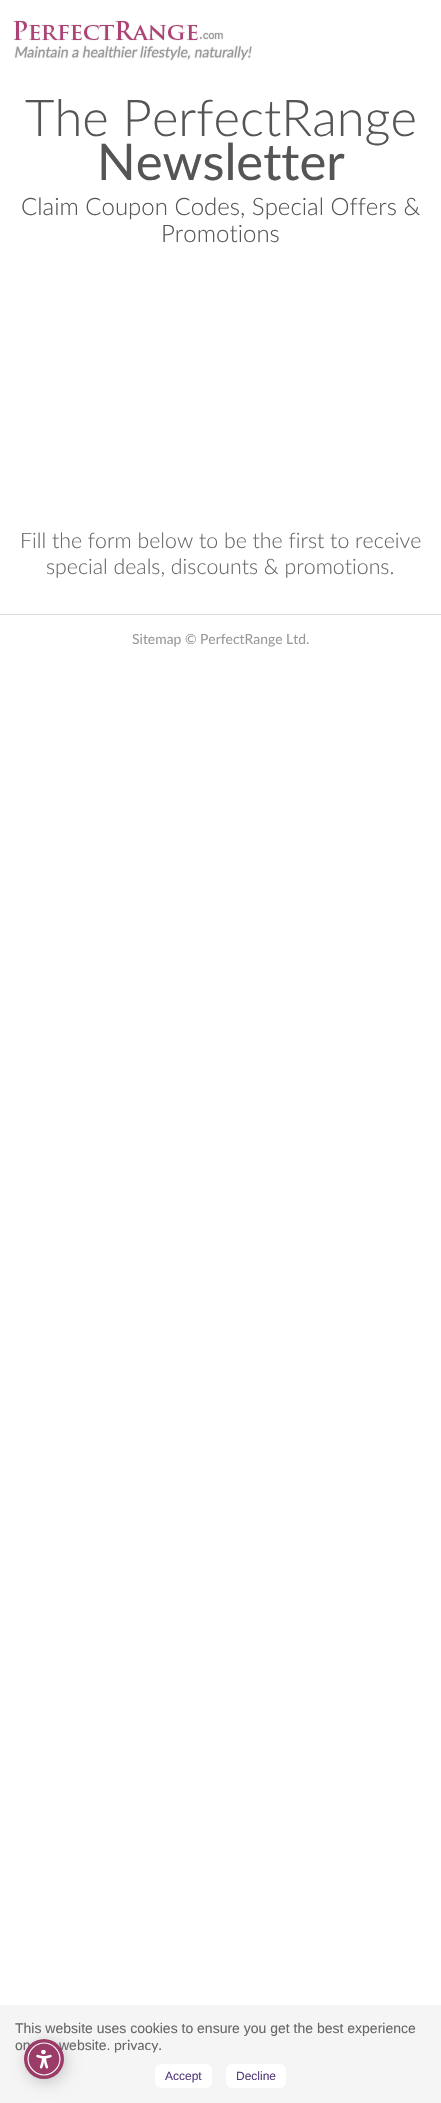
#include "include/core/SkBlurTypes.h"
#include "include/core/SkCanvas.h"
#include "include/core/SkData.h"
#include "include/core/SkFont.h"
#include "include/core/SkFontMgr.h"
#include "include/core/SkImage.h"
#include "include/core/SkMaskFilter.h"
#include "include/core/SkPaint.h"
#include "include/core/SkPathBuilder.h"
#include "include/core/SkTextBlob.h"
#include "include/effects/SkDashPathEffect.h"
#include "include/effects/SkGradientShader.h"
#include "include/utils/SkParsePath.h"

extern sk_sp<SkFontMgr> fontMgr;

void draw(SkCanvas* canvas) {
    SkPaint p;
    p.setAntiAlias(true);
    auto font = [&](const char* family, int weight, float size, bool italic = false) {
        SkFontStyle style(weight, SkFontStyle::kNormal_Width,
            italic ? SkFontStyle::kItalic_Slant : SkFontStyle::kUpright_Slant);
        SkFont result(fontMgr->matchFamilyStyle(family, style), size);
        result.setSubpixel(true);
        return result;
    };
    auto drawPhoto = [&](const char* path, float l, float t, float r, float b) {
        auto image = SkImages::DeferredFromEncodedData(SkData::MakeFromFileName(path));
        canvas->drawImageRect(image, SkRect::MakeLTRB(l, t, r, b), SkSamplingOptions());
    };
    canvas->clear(0xFFFFFFFF);
    drawPhoto("media/1.png", 13, 20, 253, 60);
    auto font1 = font("Lato", 300, 50.75f);
    p.setColor(0xFF555555);
    canvas->drawString("The PerfectRange", 25, 136, font1, p);
    auto font2 = font("Lato", 400, 50.75f);
    canvas->drawString("Newsletter", 97, 180, font2, p);
    auto font3 = font("Lato", 300, 24);
    canvas->drawString("Claim Coupon Codes, Special Offers &", 21, 215, font3, p);
    canvas->drawString("Promotions", 161, 242, font3, p);
    auto font4 = font("Lato", 300, 21.3f);
    p.setColor(0xFF676767);
    canvas->drawString("Fill the form below to be the first to receive", 20, 548, font4, p);
    canvas->drawString("special deals, discounts & promotions.", 46, 574, font4, p);
    p.setColor(0xFFDDDDDD);
    canvas->drawRect(SkRect::MakeLTRB(0, 614, 441, 615), p);
    auto font5 = font("Lato", 400, 13.9f);
    p.setColor(0xFF999999);
    canvas->drawString("Sitemap © PerfectRange Ltd.", 132, 644, font5, p);
    p.setColor(0xFFF5F5F5);
    canvas->drawRect(SkRect::MakeLTRB(0, 2005, 441, 2103), p);
    p.setColor(0x33000000);
    p.setMaskFilter(SkMaskFilter::MakeBlur(kNormal_SkBlurStyle, 7.5f));
    canvas->drawRoundRect(SkRect::MakeLTRB(26, 2042, 66, 2082), 20, 20, p);
    p.setMaskFilter(nullptr);
    auto font6 = font("Liberation Sans", 400, 14);
    p.setColor(0xFF676767);
    canvas->drawString("on", 15, 2050, font6, p);
    canvas->drawString("website.", 59, 2050, font6, p);
    p.setColor(0xFF9B3B68);
    canvas->drawCircle(44, 2059, 20, p);
    canvas->save();
    canvas->clipPath(SkPathBuilder().moveTo(44, 2042).cubicTo(53.5f, 2042, 61, 2049.5f, 61, 2059).cubicTo(61, 2068.5f, 53.5f, 2076, 44, 2076).cubicTo(34.5f, 2076, 27, 2068.5f, 27, 2059).cubicTo(27, 2049.5f, 34.5f, 2042, 44, 2042).close().detach(), true);
    p.setStyle(SkPaint::kStroke_Style);
    p.setStrokeWidth(1.2f);
    p.setColor(0xFFFFFFFF);
    canvas->drawPath(SkPathBuilder().moveTo(28, 2059).cubicTo(28, 2050.5f, 35.5f, 2043, 44, 2043).cubicTo(52.5f, 2043, 60, 2050.5f, 60, 2059).cubicTo(60, 2067.5f, 52.5f, 2075, 44, 2075).cubicTo(35.5f, 2075, 28, 2067.5f, 28, 2059).detach(), p);
    canvas->restore();
    drawPhoto("media/2.png", 36, 2050, 52, 2069);
    p.setStyle(SkPaint::kFill_Style);
    p.setColor(0xFF676767);
    canvas->drawString("This website uses cookies to ensure you get the best experience", 15, 2033, font6, p);
    auto font7 = font("Lato", 400, 14);
    canvas->drawString("privacy.", 114, 2050, font7, p);
    p.setColor(0xFFFFFFFF);
    canvas->drawRoundRect(SkRect::MakeLTRB(155, 2064, 212, 2088), 6, 6, p);
    auto font8 = font("Liberation Sans", 400, 12);
    p.setColor(0xFF563D7C);
    canvas->drawString("Accept", 165, 2080, font8, p);
    p.setColor(0xFFFFFFFF);
    canvas->drawRoundRect(SkRect::MakeLTRB(226, 2064, 286, 2088), 6, 6, p);
    p.setColor(0xFF563D7C);
    canvas->drawString("Decline", 236, 2080, font8, p);
}
